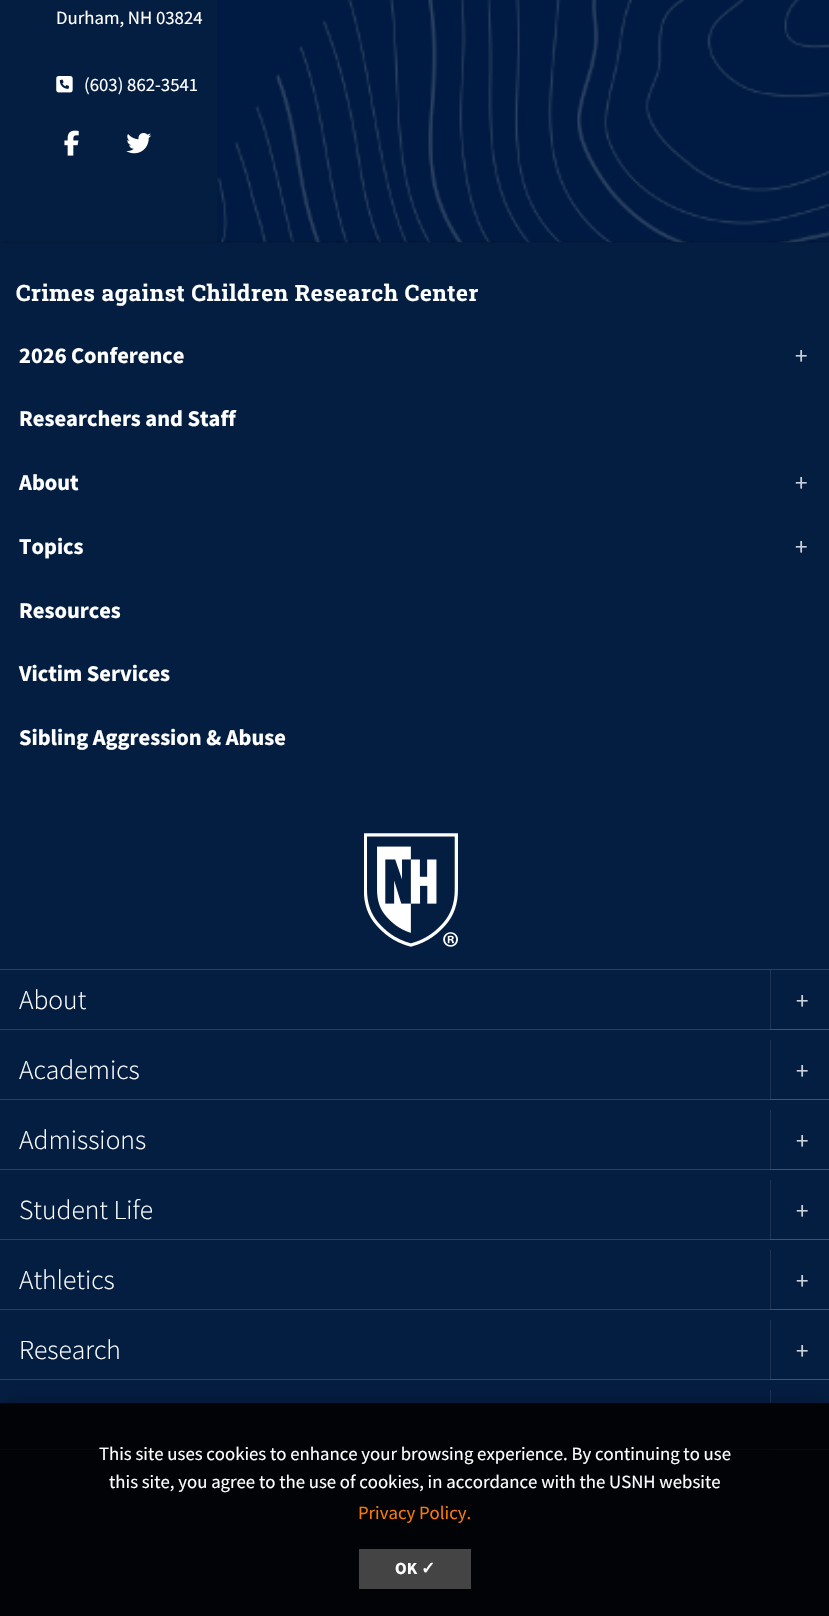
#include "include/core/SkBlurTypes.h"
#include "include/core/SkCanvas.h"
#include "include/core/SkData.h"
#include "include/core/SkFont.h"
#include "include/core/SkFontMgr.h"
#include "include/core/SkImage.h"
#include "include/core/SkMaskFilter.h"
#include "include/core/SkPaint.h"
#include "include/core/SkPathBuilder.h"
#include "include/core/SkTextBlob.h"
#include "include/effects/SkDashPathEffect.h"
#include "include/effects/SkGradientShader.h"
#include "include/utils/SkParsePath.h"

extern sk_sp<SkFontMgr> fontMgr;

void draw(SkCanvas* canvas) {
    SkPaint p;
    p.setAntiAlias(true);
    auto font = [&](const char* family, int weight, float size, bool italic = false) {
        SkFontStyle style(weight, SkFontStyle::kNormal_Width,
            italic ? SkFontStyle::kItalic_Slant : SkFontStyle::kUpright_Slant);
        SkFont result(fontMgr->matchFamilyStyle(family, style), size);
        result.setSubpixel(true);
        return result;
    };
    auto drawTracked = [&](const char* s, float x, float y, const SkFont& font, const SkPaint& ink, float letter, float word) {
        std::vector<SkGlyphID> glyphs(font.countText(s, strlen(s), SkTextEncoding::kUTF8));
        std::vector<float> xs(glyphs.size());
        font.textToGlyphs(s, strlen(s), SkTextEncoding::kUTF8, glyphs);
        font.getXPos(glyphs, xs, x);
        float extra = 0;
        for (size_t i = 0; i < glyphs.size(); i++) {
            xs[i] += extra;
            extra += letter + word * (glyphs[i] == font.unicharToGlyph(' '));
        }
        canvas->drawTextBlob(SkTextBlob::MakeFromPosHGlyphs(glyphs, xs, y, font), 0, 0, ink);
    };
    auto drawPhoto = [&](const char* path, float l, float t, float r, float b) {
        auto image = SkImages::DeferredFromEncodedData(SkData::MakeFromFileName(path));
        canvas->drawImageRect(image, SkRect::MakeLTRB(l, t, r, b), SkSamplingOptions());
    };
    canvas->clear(0xFF041E42);
    drawPhoto("media/1.png", 217, 0, 829, 243);
    auto font1 = font("Source Sans Pro", 400, 18.75f);
    p.setColor(0xFFFFFFFF);
    canvas->drawString("Durham, NH 03824", 56, 24, font1, p);
    drawPhoto("media/2.png", 56, 76, 73, 93);
    canvas->drawString("(603) 862-3541", 84, 91, font1, p);
    drawPhoto("media/3.png", 64, 130, 79, 156);
    drawPhoto("media/4.png", 126, 133, 152, 154);
    p.setColor(0x4D000000);
    p.setMaskFilter(SkMaskFilter::MakeBlur(kNormal_SkBlurStyle, 3));
    canvas->drawRect(SkRect::MakeLTRB(3, 243, 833, 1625), p);
    p.setMaskFilter(nullptr);
    p.setColor(0xFF041E42);
    canvas->drawRect(SkRect::MakeLTRB(0, 243, 829, 1616), p);
    auto font2 = font("Roboto Slab", 700, 22.5f);
    p.setColor(0xFFFFFFFF);
    drawTracked("Crimes against Children Research Center", 16, 301, font2, p, 0.6f, 0);
    auto font3 = font("Source Sans Pro", 700, 22.5f);
    canvas->drawString("2026 Conference", 19, 363, font3, p);
    auto font4 = font("Source Sans Pro", 400, 25);
    p.setColor(0xFFCDD2D9);
    canvas->drawString("+", 795, 364, font4, p);
    p.setColor(0xFFFFFFFF);
    canvas->drawString("Researchers and Staff", 19, 426, font3, p);
    canvas->drawString("About", 19, 490, font3, p);
    p.setColor(0xFFCDD2D9);
    canvas->drawString("+", 795, 491, font4, p);
    p.setColor(0xFFFFFFFF);
    canvas->drawString("Topics", 19, 554, font3, p);
    p.setColor(0xFFCDD2D9);
    canvas->drawString("+", 795, 555, font4, p);
    p.setColor(0xFFFFFFFF);
    {
        const struct { const char* s; float x, y; } items[] = {
            {"Resources", 19, 618},
            {"Victim Services", 19, 681},
            {"Sibling Aggression & Abuse", 19, 745},
        };
        for (auto [s, x, y] : items) {
            canvas->drawString(s, x, y, font3, p);
        }
    }
    drawPhoto("media/5.png", 364, 833, 458, 947);
    p.setColor(0xFF2A405E);
    canvas->drawRect(SkRect::MakeLTRB(0, 969, 829, 970), p);
    canvas->drawRect(SkRect::MakeLTRB(0, 1029, 771, 1030), p);
    auto font5 = font("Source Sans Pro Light", 300, 27.5f);
    p.setColor(0xFFFFFFFF);
    canvas->drawString("About", 19, 1009, font5, p);
    p.setColor(0xFF3F536E);
    canvas->drawPath(SkPathBuilder().moveTo(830, 1030).lineTo(770, 1030).lineTo(771, 1029).lineTo(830, 1029).close().detach(), p);
    p.setColor(0x1AFFFFFF);
    canvas->drawPath(SkPathBuilder().moveTo(770, 1030).lineTo(770, 970).lineTo(771, 970).lineTo(771, 1029).close().detach(), p);
    p.setColor(0xFFCDD2D9);
    canvas->drawString("+", 796, 1009, font4, p);
    p.setColor(0xFF2A405E);
    canvas->drawRect(SkRect::MakeLTRB(0, 1099, 771, 1100), p);
    p.setColor(0xFFFFFFFF);
    canvas->drawString("Academics", 19, 1079, font5, p);
    p.setColor(0xFF3F536E);
    canvas->drawPath(SkPathBuilder().moveTo(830, 1100).lineTo(770, 1100).lineTo(771, 1099).lineTo(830, 1099).close().detach(), p);
    p.setColor(0x1AFFFFFF);
    canvas->drawPath(SkPathBuilder().moveTo(770, 1100).lineTo(770, 1040).lineTo(771, 1040).lineTo(771, 1099).close().detach(), p);
    p.setColor(0xFFCDD2D9);
    canvas->drawString("+", 796, 1079, font4, p);
    p.setColor(0xFF2A405E);
    canvas->drawRect(SkRect::MakeLTRB(0, 1169, 771, 1170), p);
    p.setColor(0xFFFFFFFF);
    canvas->drawString("Admissions", 19, 1149, font5, p);
    p.setColor(0xFF3F536E);
    canvas->drawPath(SkPathBuilder().moveTo(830, 1170).lineTo(770, 1170).lineTo(771, 1169).lineTo(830, 1169).close().detach(), p);
    p.setColor(0x1AFFFFFF);
    canvas->drawPath(SkPathBuilder().moveTo(770, 1170).lineTo(770, 1110).lineTo(771, 1110).lineTo(771, 1169).close().detach(), p);
    p.setColor(0xFFCDD2D9);
    canvas->drawString("+", 796, 1149, font4, p);
    p.setColor(0xFF2A405E);
    canvas->drawRect(SkRect::MakeLTRB(0, 1239, 771, 1240), p);
    p.setColor(0xFFFFFFFF);
    canvas->drawString("Student Life", 19, 1219, font5, p);
    p.setColor(0xFF3F536E);
    canvas->drawPath(SkPathBuilder().moveTo(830, 1240).lineTo(770, 1240).lineTo(771, 1239).lineTo(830, 1239).close().detach(), p);
    p.setColor(0x1AFFFFFF);
    canvas->drawPath(SkPathBuilder().moveTo(770, 1240).lineTo(770, 1180).lineTo(771, 1180).lineTo(771, 1239).close().detach(), p);
    p.setColor(0xFFCDD2D9);
    canvas->drawString("+", 796, 1219, font4, p);
    p.setColor(0xFF2A405E);
    canvas->drawRect(SkRect::MakeLTRB(0, 1309, 771, 1310), p);
    p.setColor(0xFFFFFFFF);
    canvas->drawString("Athletics", 19, 1289, font5, p);
    p.setColor(0xFF3F536E);
    canvas->drawPath(SkPathBuilder().moveTo(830, 1310).lineTo(770, 1310).lineTo(771, 1309).lineTo(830, 1309).close().detach(), p);
    p.setColor(0x1AFFFFFF);
    canvas->drawPath(SkPathBuilder().moveTo(770, 1310).lineTo(770, 1250).lineTo(771, 1250).lineTo(771, 1309).close().detach(), p);
    p.setColor(0xFFCDD2D9);
    canvas->drawString("+", 796, 1289, font4, p);
    p.setColor(0xFF2A405E);
    canvas->drawRect(SkRect::MakeLTRB(0, 1379, 771, 1380), p);
    p.setColor(0xFFFFFFFF);
    canvas->drawString("Research", 19, 1359, font5, p);
    p.setColor(0xFF3F536E);
    canvas->drawPath(SkPathBuilder().moveTo(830, 1380).lineTo(770, 1380).lineTo(771, 1379).lineTo(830, 1379).close().detach(), p);
    p.setColor(0x1AFFFFFF);
    canvas->drawPath(SkPathBuilder().moveTo(770, 1380).lineTo(770, 1320).lineTo(771, 1320).lineTo(771, 1379).close().detach(), p);
    p.setColor(0xFFCDD2D9);
    canvas->drawString("+", 796, 1359, font4, p);
    p.setColor(0xFF2A405E);
    canvas->drawRect(SkRect::MakeLTRB(0, 1449, 771, 1450), p);
    p.setColor(0xFF3F536E);
    canvas->drawPath(SkPathBuilder().moveTo(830, 1450).lineTo(770, 1450).lineTo(771, 1449).lineTo(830, 1449).close().detach(), p);
    p.setColor(0x1AFFFFFF);
    canvas->drawPath(SkPathBuilder().moveTo(770, 1450).lineTo(770, 1390).lineTo(771, 1390).lineTo(771, 1449).close().detach(), p);
    canvas->save();
    canvas->clipRect(SkRect::MakeLTRB(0, 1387, 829, 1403));
    p.setColor(0x4D000000);
    p.setMaskFilter(SkMaskFilter::MakeBlur(kNormal_SkBlurStyle, 10.5f));
    canvas->drawRect(SkRect::MakeLTRB(0, 1403, 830, 1616), p);
    p.setMaskFilter(nullptr);
    canvas->restore();
    p.setColor(0xE6000000);
    canvas->drawRect(SkRect::MakeLTRB(0, 1403, 829, 1616), p);
    p.setColor(0xFFFFFFFF);
    canvas->drawString("This site uses cookies to enhance your browsing experience. By continuing to use", 99, 1460, font1, p);
    canvas->drawString("this site, you agree to the use of cookies, in accordance with the USNH website", 109, 1488, font1, p);
    p.setColor(0xFFF77A05);
    canvas->drawString("Privacy Policy.", 358, 1519, font1, p);
    p.setColor(0xFF444444);
    canvas->drawRect(SkRect::MakeLTRB(359, 1549, 471, 1589), p);
    auto font6 = font("Source Sans Pro", 700, 17);
    p.setColor(0xFFFFFFFF);
    canvas->drawString("OK", 395, 1574, font6, p);
    auto font7 = font("DejaVu Sans", 700, 17);
    canvas->drawString("✓", 421, 1574, font7, p);
}
